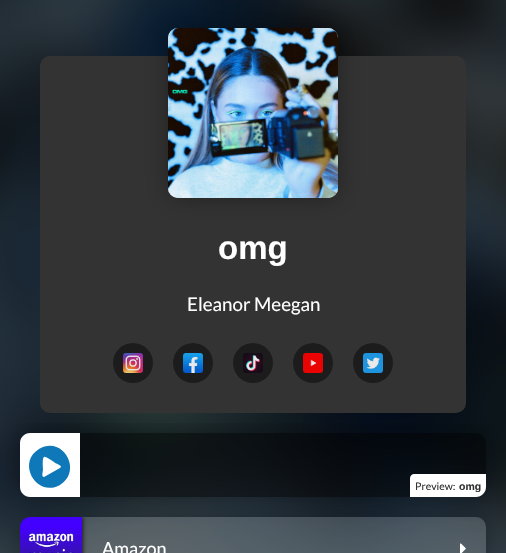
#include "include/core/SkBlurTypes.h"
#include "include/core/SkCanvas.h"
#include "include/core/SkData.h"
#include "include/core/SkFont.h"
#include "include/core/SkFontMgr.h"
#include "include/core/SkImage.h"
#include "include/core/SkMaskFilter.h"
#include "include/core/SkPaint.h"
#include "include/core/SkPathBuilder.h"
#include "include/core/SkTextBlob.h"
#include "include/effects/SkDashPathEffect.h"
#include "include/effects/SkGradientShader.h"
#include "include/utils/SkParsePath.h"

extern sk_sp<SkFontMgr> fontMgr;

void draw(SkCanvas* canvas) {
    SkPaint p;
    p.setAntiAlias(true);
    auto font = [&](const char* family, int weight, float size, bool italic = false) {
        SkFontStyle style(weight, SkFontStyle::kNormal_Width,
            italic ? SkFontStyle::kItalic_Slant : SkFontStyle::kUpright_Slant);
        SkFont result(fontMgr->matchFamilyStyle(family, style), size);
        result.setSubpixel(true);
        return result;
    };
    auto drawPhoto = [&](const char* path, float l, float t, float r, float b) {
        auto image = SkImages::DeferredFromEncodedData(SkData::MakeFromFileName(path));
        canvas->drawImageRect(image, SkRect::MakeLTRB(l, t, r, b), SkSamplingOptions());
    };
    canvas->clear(0xFF000000);
    drawPhoto("media/1.png", 0, 0, 506, 553);
    p.setColor(0xFF333333);
    canvas->drawRoundRect(SkRect::MakeLTRB(40, 56, 466, 413), 10, 10, p);
    p.setColor(0x59000000);
    p.setMaskFilter(SkMaskFilter::MakeBlur(kNormal_SkBlurStyle, 12.5f));
    canvas->drawRoundRect(SkRect::MakeLTRB(168, 28, 338, 198), 10, 10, p);
    p.setMaskFilter(nullptr);
    p.setColor(0xFFCCCCCC);
    canvas->drawRoundRect(SkRect::MakeLTRB(168, 28, 338, 198), 10, 10, p);
    drawPhoto("media/2.png", 168, 28, 338, 198);
    auto font1 = font("Liberation Sans", 700, 33);
    p.setColor(0xFFFFFFFF);
    canvas->drawString("omg", 218, 259, font1, p);
    auto font2 = font("Lato", 400, 18.75f);
    canvas->drawString("Eleanor Meegan", 187, 311, font2, p);
    p.setColor(0xFF1C1C1C);
    canvas->drawCircle(133, 363, 20, p);
    drawPhoto("media/3.png", 123, 353, 143, 373);
    canvas->drawCircle(193, 363, 20, p);
    drawPhoto("media/4.png", 183, 353, 203, 373);
    canvas->drawCircle(253, 363, 20, p);
    drawPhoto("media/5.png", 243, 353, 263, 373);
    canvas->drawCircle(313, 363, 20, p);
    drawPhoto("media/6.png", 303, 353, 323, 373);
    canvas->drawCircle(373, 363, 20, p);
    drawPhoto("media/7.png", 363, 353, 383, 373);
    canvas->save();
    canvas->clipPath(SkPathBuilder(SkPathFillType::kEvenOdd).moveTo(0, 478).lineTo(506, 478).lineTo(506, 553).lineTo(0, 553).close().moveTo(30, 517).lineTo(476, 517).cubicTo(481.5f, 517, 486, 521.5f, 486, 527).lineTo(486, 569).cubicTo(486, 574.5f, 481.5f, 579, 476, 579).lineTo(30, 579).cubicTo(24.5f, 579, 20, 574.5f, 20, 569).lineTo(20, 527).cubicTo(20, 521.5f, 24.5f, 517, 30, 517).close().detach(), true);
    p.setColor(0x59000000);
    p.setMaskFilter(SkMaskFilter::MakeBlur(kNormal_SkBlurStyle, 12.5f));
    canvas->drawRoundRect(SkRect::MakeLTRB(20, 517, 486, 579), 10, 10, p);
    p.setMaskFilter(nullptr);
    canvas->restore();
    p.setColor(0x2BFFFFFF);
    canvas->drawRoundRect(SkRect::MakeLTRB(20, 517, 486, 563), 10, 10, p);
    canvas->save();
    canvas->clipPath(SkPathBuilder().moveTo(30, 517).lineTo(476, 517).cubicTo(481.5f, 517, 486, 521.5f, 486, 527).lineTo(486, 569).cubicTo(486, 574.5f, 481.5f, 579, 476, 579).lineTo(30, 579).cubicTo(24.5f, 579, 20, 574.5f, 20, 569).lineTo(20, 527).cubicTo(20, 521.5f, 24.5f, 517, 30, 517).close().detach(), true);
    p.setColor(0xFF000000);
    p.setMaskFilter(SkMaskFilter::MakeBlur(kNormal_SkBlurStyle, 2.5f));
    canvas->drawRect(SkRect::MakeLTRB(20, 517, 82, 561), p);
    p.setMaskFilter(nullptr);
    canvas->restore();
    drawPhoto("media/8.png", 20, 517, 82, 553);
    canvas->save();
    canvas->clipRect(SkRect::MakeLTRB(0, 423, 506, 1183));
    canvas->clipPath(SkPathBuilder(SkPathFillType::kEvenOdd).moveTo(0, 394).lineTo(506, 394).lineTo(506, 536).lineTo(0, 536).close().moveTo(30, 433).lineTo(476, 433).cubicTo(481.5f, 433, 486, 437.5f, 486, 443).lineTo(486, 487).cubicTo(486, 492.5f, 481.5f, 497, 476, 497).lineTo(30, 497).cubicTo(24.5f, 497, 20, 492.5f, 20, 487).lineTo(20, 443).cubicTo(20, 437.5f, 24.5f, 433, 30, 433).close().detach(), true);
    p.setColor(0x59000000);
    p.setMaskFilter(SkMaskFilter::MakeBlur(kNormal_SkBlurStyle, 12.5f));
    canvas->drawRoundRect(SkRect::MakeLTRB(20, 433, 486, 497), 10, 10, p);
    p.setMaskFilter(nullptr);
    canvas->restore();
    p.setColor(0xFFFFFFFF);
    canvas->drawPath(SkPathBuilder().moveTo(30, 433).lineTo(80, 433).lineTo(80, 497).lineTo(30, 497).cubicTo(24.5f, 497, 20, 492.5f, 20, 487).lineTo(20, 443).cubicTo(20, 437.5f, 24.5f, 433, 30, 433).close().detach(), p);
    p.setColor(0xFF0F78B8);
    canvas->drawPath(SkPathBuilder().moveTo(39, 449).cubicTo(63, 435, 83, 471, 60, 485).cubicTo(37, 498, 16, 463, 39, 449).close().moveTo(60, 468).cubicTo(64, 466, 55, 463, 55, 463).cubicTo(53, 461, 45, 456, 44, 457).cubicTo(42, 458, 43, 468, 43, 470).cubicTo(43, 471, 41, 477, 44, 477).close().detach(), p);
    p.setColor(0x80000000);
    canvas->drawPath(SkPathBuilder().moveTo(80, 433).lineTo(476, 433).cubicTo(481.5f, 433, 486, 437.5f, 486, 443).lineTo(486, 487).cubicTo(486, 492.5f, 481.5f, 497, 476, 497).lineTo(80, 497).close().detach(), p);
    p.setColor(0xFFFFFFFF);
    canvas->drawPath(SkPathBuilder().moveTo(414, 474).lineTo(486, 474).lineTo(486, 487).cubicTo(486, 492.5f, 481.5f, 497, 476, 497).lineTo(410, 497).lineTo(410, 478).cubicTo(410, 476, 412, 474, 414, 474).close().detach(), p);
    auto font3 = font("Lato", 400, 10.5f);
    p.setColor(0xFF333333);
    canvas->drawString("Preview:", 415, 490, font3, p);
    canvas->save();
    canvas->clipRect(SkRect::MakeLTRB(415, 479, 481, 492));
    auto font4 = font("Liberation Sans", 700, 10.5f);
    canvas->drawString("omg", 459, 490, font4, p);
    canvas->restore();
    auto font5 = font("Lato", 400, 18);
    p.setColor(0xFFFFFFFF);
    canvas->drawString("Amazon", 102, 555, font5, p);
    drawPhoto("media/9.png", 460, 543, 466, 553);
}
